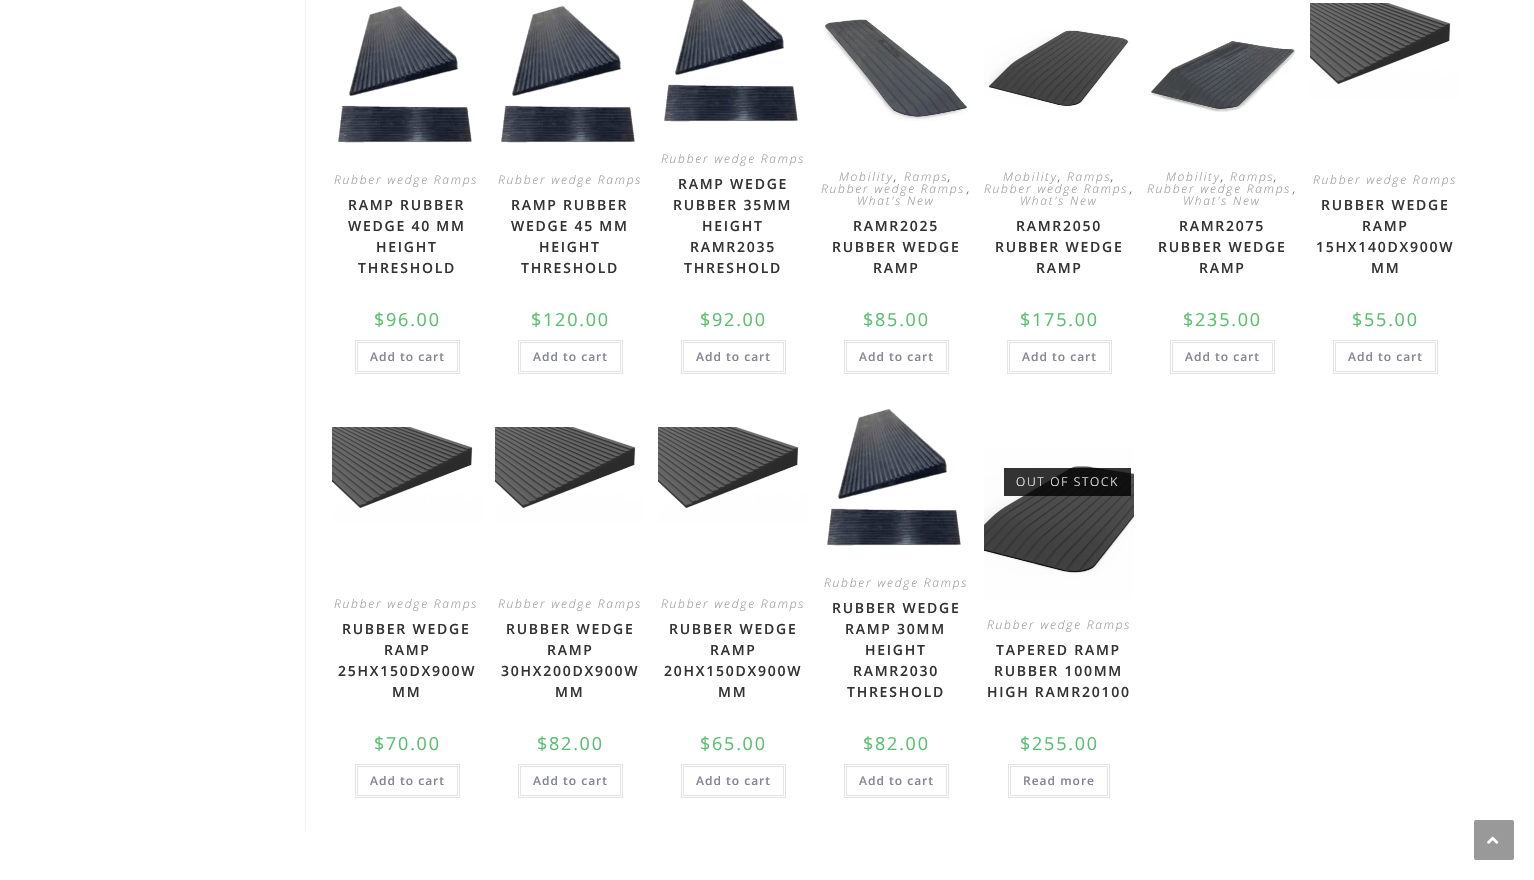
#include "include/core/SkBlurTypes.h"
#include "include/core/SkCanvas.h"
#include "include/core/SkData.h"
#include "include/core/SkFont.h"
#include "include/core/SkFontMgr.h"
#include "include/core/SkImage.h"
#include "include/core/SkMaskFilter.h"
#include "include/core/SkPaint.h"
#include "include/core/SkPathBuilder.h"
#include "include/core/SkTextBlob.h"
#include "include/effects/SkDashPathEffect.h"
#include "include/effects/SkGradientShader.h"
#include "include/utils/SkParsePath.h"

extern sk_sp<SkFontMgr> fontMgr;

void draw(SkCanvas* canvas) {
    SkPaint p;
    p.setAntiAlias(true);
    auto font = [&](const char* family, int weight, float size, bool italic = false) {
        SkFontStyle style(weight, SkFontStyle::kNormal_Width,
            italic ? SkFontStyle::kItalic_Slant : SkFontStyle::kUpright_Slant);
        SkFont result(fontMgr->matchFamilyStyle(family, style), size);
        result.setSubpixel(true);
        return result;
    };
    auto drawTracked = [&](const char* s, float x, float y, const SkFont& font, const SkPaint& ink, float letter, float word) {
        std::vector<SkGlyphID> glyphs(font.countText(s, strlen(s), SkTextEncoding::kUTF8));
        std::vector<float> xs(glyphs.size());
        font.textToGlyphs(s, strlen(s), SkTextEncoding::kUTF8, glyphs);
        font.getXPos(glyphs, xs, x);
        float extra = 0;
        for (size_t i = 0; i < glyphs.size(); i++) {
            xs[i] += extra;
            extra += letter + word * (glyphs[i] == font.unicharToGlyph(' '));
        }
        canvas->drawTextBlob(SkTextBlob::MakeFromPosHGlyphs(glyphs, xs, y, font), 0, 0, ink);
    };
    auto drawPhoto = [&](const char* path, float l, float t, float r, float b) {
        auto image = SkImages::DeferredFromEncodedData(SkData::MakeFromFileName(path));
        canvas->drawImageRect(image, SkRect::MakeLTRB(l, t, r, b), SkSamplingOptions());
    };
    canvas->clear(0xFFFFFFFF);
    p.setColor(0xFFF1F1F1);
    canvas->drawRect(SkRect::MakeLTRB(305, 0, 306, 830), p);
    drawPhoto("media/1.png", 338, 5, 472, 143);
    auto font1 = font("Open Sans", 300, 12, true);
    p.setColor(0xFF999999);
    drawTracked("Rubber wedge Ramps", 334, 184, font1, p, 1.75f, 0);
    auto font2 = font("Open Sans", 600, 14);
    p.setColor(0xFF333333);
    {
        const struct { const char* s; float x, y; } items[] = {
            {"RAMP RUBBER", 348, 210},
            {"WEDGE 40 MM", 348, 231},
            {"HEIGHT", 376, 252},
            {"THRESHOLD", 358, 273},
        };
        for (auto [s, x, y] : items) {
            drawTracked(s, x, y, font2, p, 1.75f, 0);
        }
    }
    auto font3 = font("Open Sans", 400, 18);
    p.setColor(0xFF57BF6D);
    drawTracked("$96.00", 374, 326, font3, p, 1.75f, 0);
    p.setStyle(SkPaint::kStroke_Style);
    p.setStrokeWidth(1);
    p.setColor(0xFFE4E4E4);
    canvas->drawRect(SkRect::MakeLTRB(355.5f, 340.5f, 459.5f, 373.5f), p);
    canvas->drawRect(SkRect::MakeLTRB(357.5f, 342.5f, 457.5f, 371.5f), p);
    auto font4 = font("Open Sans", 600, 12);
    p.setStyle(SkPaint::kFill_Style);
    p.setColor(0xFF848494);
    drawTracked("Add to cart", 370, 361, font4, p, 1, 0);
    drawPhoto("media/1.png", 501, 5, 635, 143);
    p.setColor(0xFF999999);
    drawTracked("Rubber wedge Ramps", 498, 184, font1, p, 1.75f, 0);
    p.setColor(0xFF333333);
    {
        const struct { const char* s; float x, y; } items[] = {
            {"RAMP RUBBER", 511, 210},
            {"WEDGE 45 MM", 511, 231},
            {"HEIGHT", 539, 252},
            {"THRESHOLD", 521, 273},
        };
        for (auto [s, x, y] : items) {
            drawTracked(s, x, y, font2, p, 1.75f, 0);
        }
    }
    p.setColor(0xFF57BF6D);
    drawTracked("$120.00", 531, 326, font3, p, 1.75f, 0);
    p.setStyle(SkPaint::kStroke_Style);
    p.setColor(0xFFE4E4E4);
    canvas->drawRect(SkRect::MakeLTRB(518.5f, 340.5f, 622.5f, 373.5f), p);
    canvas->drawRect(SkRect::MakeLTRB(520.5f, 342.5f, 620.5f, 371.5f), p);
    p.setStyle(SkPaint::kFill_Style);
    p.setColor(0xFF848494);
    drawTracked("Add to cart", 533, 361, font4, p, 1, 0);
    drawPhoto("media/2.png", 664, 0, 798, 122);
    p.setColor(0xFF999999);
    drawTracked("Rubber wedge Ramps", 661, 163, font1, p, 1.75f, 0);
    p.setColor(0xFF333333);
    {
        const struct { const char* s; float x, y; } items[] = {
            {"RAMP WEDGE", 678, 189},
            {"RUBBER 35MM", 673, 210},
            {"HEIGHT", 702, 231},
            {"RAMR2035", 690, 252},
            {"THRESHOLD", 684, 273},
        };
        for (auto [s, x, y] : items) {
            drawTracked(s, x, y, font2, p, 1.75f, 0);
        }
    }
    p.setColor(0xFF57BF6D);
    drawTracked("$92.00", 700, 326, font3, p, 1.75f, 0);
    p.setStyle(SkPaint::kStroke_Style);
    p.setColor(0xFFE4E4E4);
    canvas->drawRect(SkRect::MakeLTRB(681.5f, 340.5f, 785.5f, 373.5f), p);
    canvas->drawRect(SkRect::MakeLTRB(683.5f, 342.5f, 783.5f, 371.5f), p);
    p.setStyle(SkPaint::kFill_Style);
    p.setColor(0xFF848494);
    drawTracked("Add to cart", 696, 361, font4, p, 1, 0);
    drawPhoto("media/3.png", 821, 0, 971, 151);
    p.setColor(0xFF999999);
    drawTracked("Mobility", 839, 181, font1, p, 1.75f, 0);
    p.setColor(0xFF4A4A4A);
    drawTracked(",", 894, 181, font1, p, 1.75f, 0);
    p.setColor(0xFF999999);
    drawTracked("Ramps", 904, 181, font1, p, 1.75f, 0);
    p.setColor(0xFF4A4A4A);
    drawTracked(",", 948, 181, font1, p, 1.75f, 0);
    p.setColor(0xFF999999);
    drawTracked("Rubber wedge Ramps", 821, 193, font1, p, 1.75f, 0);
    p.setColor(0xFF4A4A4A);
    drawTracked(",", 967, 193, font1, p, 1.75f, 0);
    p.setColor(0xFF999999);
    drawTracked("What's New", 857, 205, font1, p, 1.75f, 0);
    p.setColor(0xFF333333);
    {
        const struct { const char* s; float x, y; } items[] = {
            {"RAMR2025", 853, 231},
            {"RUBBER WEDGE", 832, 252},
            {"RAMP", 873, 273},
        };
        for (auto [s, x, y] : items) {
            drawTracked(s, x, y, font2, p, 1.75f, 0);
        }
    }
    p.setColor(0xFF57BF6D);
    drawTracked("$85.00", 863, 326, font3, p, 1.75f, 0);
    p.setStyle(SkPaint::kStroke_Style);
    p.setColor(0xFFE4E4E4);
    canvas->drawRect(SkRect::MakeLTRB(844.5f, 340.5f, 948.5f, 373.5f), p);
    canvas->drawRect(SkRect::MakeLTRB(846.5f, 342.5f, 946.5f, 371.5f), p);
    p.setStyle(SkPaint::kFill_Style);
    p.setColor(0xFF848494);
    drawTracked("Add to cart", 859, 361, font4, p, 1, 0);
    drawPhoto("media/4.png", 984, 17, 1134, 123);
    p.setColor(0xFF999999);
    drawTracked("Mobility", 1003, 181, font1, p, 1.75f, 0);
    p.setColor(0xFF4A4A4A);
    drawTracked(",", 1058, 181, font1, p, 1.75f, 0);
    p.setColor(0xFF999999);
    drawTracked("Ramps", 1067, 181, font1, p, 1.75f, 0);
    p.setColor(0xFF4A4A4A);
    drawTracked(",", 1111, 181, font1, p, 1.75f, 0);
    p.setColor(0xFF999999);
    drawTracked("Rubber wedge Ramps", 984, 193, font1, p, 1.75f, 0);
    p.setColor(0xFF4A4A4A);
    drawTracked(",", 1130, 193, font1, p, 1.75f, 0);
    p.setColor(0xFF999999);
    drawTracked("What's New", 1020, 205, font1, p, 1.75f, 0);
    p.setColor(0xFF333333);
    {
        const struct { const char* s; float x, y; } items[] = {
            {"RAMR2050", 1016, 231},
            {"RUBBER WEDGE", 995, 252},
            {"RAMP", 1036, 273},
        };
        for (auto [s, x, y] : items) {
            drawTracked(s, x, y, font2, p, 1.75f, 0);
        }
    }
    p.setColor(0xFF57BF6D);
    drawTracked("$175.00", 1020, 326, font3, p, 1.75f, 0);
    p.setStyle(SkPaint::kStroke_Style);
    p.setColor(0xFFE4E4E4);
    canvas->drawRect(SkRect::MakeLTRB(1007.5f, 340.5f, 1111.5f, 373.5f), p);
    canvas->drawRect(SkRect::MakeLTRB(1009.5f, 342.5f, 1109.5f, 371.5f), p);
    p.setStyle(SkPaint::kFill_Style);
    p.setColor(0xFF848494);
    drawTracked("Add to cart", 1022, 361, font4, p, 1, 0);
    drawPhoto("media/5.png", 1147, 17, 1297, 123);
    p.setColor(0xFF999999);
    drawTracked("Mobility", 1166, 181, font1, p, 1.75f, 0);
    p.setColor(0xFF4A4A4A);
    drawTracked(",", 1221, 181, font1, p, 1.75f, 0);
    p.setColor(0xFF999999);
    drawTracked("Ramps", 1230, 181, font1, p, 1.75f, 0);
    p.setColor(0xFF4A4A4A);
    drawTracked(",", 1274, 181, font1, p, 1.75f, 0);
    p.setColor(0xFF999999);
    drawTracked("Rubber wedge Ramps", 1147, 193, font1, p, 1.75f, 0);
    p.setColor(0xFF4A4A4A);
    drawTracked(",", 1293, 193, font1, p, 1.75f, 0);
    p.setColor(0xFF999999);
    drawTracked("What's New", 1183, 205, font1, p, 1.75f, 0);
    p.setColor(0xFF333333);
    {
        const struct { const char* s; float x, y; } items[] = {
            {"RAMR2075", 1179, 231},
            {"RUBBER WEDGE", 1158, 252},
            {"RAMP", 1199, 273},
        };
        for (auto [s, x, y] : items) {
            drawTracked(s, x, y, font2, p, 1.75f, 0);
        }
    }
    p.setColor(0xFF57BF6D);
    drawTracked("$235.00", 1183, 326, font3, p, 1.75f, 0);
    p.setStyle(SkPaint::kStroke_Style);
    p.setColor(0xFFE4E4E4);
    canvas->drawRect(SkRect::MakeLTRB(1170.5f, 340.5f, 1274.5f, 373.5f), p);
    canvas->drawRect(SkRect::MakeLTRB(1172.5f, 342.5f, 1272.5f, 371.5f), p);
    p.setStyle(SkPaint::kFill_Style);
    p.setColor(0xFF848494);
    drawTracked("Add to cart", 1185, 361, font4, p, 1, 0);
    drawPhoto("media/6.png", 1310, 3, 1460, 154);
    p.setColor(0xFF999999);
    drawTracked("Rubber wedge Ramps", 1313, 184, font1, p, 1.75f, 0);
    p.setColor(0xFF333333);
    {
        const struct { const char* s; float x, y; } items[] = {
            {"RUBBER WEDGE", 1321, 210},
            {"RAMP", 1362, 231},
            {"15HX140DX900W", 1316, 252},
            {"MM", 1371, 273},
        };
        for (auto [s, x, y] : items) {
            drawTracked(s, x, y, font2, p, 1.75f, 0);
        }
    }
    p.setColor(0xFF57BF6D);
    drawTracked("$55.00", 1352, 326, font3, p, 1.75f, 0);
    p.setStyle(SkPaint::kStroke_Style);
    p.setColor(0xFFE4E4E4);
    canvas->drawRect(SkRect::MakeLTRB(1333.5f, 340.5f, 1437.5f, 373.5f), p);
    canvas->drawRect(SkRect::MakeLTRB(1335.5f, 342.5f, 1435.5f, 371.5f), p);
    p.setStyle(SkPaint::kFill_Style);
    p.setColor(0xFF848494);
    drawTracked("Add to cart", 1348, 361, font4, p, 1, 0);
    drawPhoto("media/6.png", 332, 427, 482, 578);
    p.setColor(0xFF999999);
    drawTracked("Rubber wedge Ramps", 334, 608, font1, p, 1.75f, 0);
    p.setColor(0xFF333333);
    {
        const struct { const char* s; float x, y; } items[] = {
            {"RUBBER WEDGE", 342, 634},
            {"RAMP", 384, 655},
            {"25HX150DX900W", 338, 676},
            {"MM", 392, 697},
        };
        for (auto [s, x, y] : items) {
            drawTracked(s, x, y, font2, p, 1.75f, 0);
        }
    }
    p.setColor(0xFF57BF6D);
    drawTracked("$70.00", 374, 750, font3, p, 1.75f, 0);
    p.setStyle(SkPaint::kStroke_Style);
    p.setColor(0xFFE4E4E4);
    canvas->drawRect(SkRect::MakeLTRB(355.5f, 764.5f, 459.5f, 797.5f), p);
    canvas->drawRect(SkRect::MakeLTRB(357.5f, 766.5f, 457.5f, 795.5f), p);
    p.setStyle(SkPaint::kFill_Style);
    p.setColor(0xFF848494);
    drawTracked("Add to cart", 370, 785, font4, p, 1, 0);
    drawPhoto("media/6.png", 495, 427, 645, 578);
    p.setColor(0xFF999999);
    drawTracked("Rubber wedge Ramps", 498, 608, font1, p, 1.75f, 0);
    p.setColor(0xFF333333);
    {
        const struct { const char* s; float x, y; } items[] = {
            {"RUBBER WEDGE", 506, 634},
            {"RAMP", 547, 655},
            {"30HX200DX900W", 501, 676},
            {"MM", 555, 697},
        };
        for (auto [s, x, y] : items) {
            drawTracked(s, x, y, font2, p, 1.75f, 0);
        }
    }
    p.setColor(0xFF57BF6D);
    drawTracked("$82.00", 537, 750, font3, p, 1.75f, 0);
    p.setStyle(SkPaint::kStroke_Style);
    p.setColor(0xFFE4E4E4);
    canvas->drawRect(SkRect::MakeLTRB(518.5f, 764.5f, 622.5f, 797.5f), p);
    canvas->drawRect(SkRect::MakeLTRB(520.5f, 766.5f, 620.5f, 795.5f), p);
    p.setStyle(SkPaint::kFill_Style);
    p.setColor(0xFF848494);
    drawTracked("Add to cart", 533, 785, font4, p, 1, 0);
    drawPhoto("media/6.png", 658, 427, 808, 578);
    p.setColor(0xFF999999);
    drawTracked("Rubber wedge Ramps", 661, 608, font1, p, 1.75f, 0);
    p.setColor(0xFF333333);
    {
        const struct { const char* s; float x, y; } items[] = {
            {"RUBBER WEDGE", 669, 634},
            {"RAMP", 710, 655},
            {"20HX150DX900W", 664, 676},
            {"MM", 718, 697},
        };
        for (auto [s, x, y] : items) {
            drawTracked(s, x, y, font2, p, 1.75f, 0);
        }
    }
    p.setColor(0xFF57BF6D);
    drawTracked("$65.00", 700, 750, font3, p, 1.75f, 0);
    p.setStyle(SkPaint::kStroke_Style);
    p.setColor(0xFFE4E4E4);
    canvas->drawRect(SkRect::MakeLTRB(681.5f, 764.5f, 785.5f, 797.5f), p);
    canvas->drawRect(SkRect::MakeLTRB(683.5f, 766.5f, 783.5f, 795.5f), p);
    p.setStyle(SkPaint::kFill_Style);
    p.setColor(0xFF848494);
    drawTracked("Add to cart", 696, 785, font4, p, 1, 0);
    drawPhoto("media/1.png", 827, 408, 961, 546);
    p.setColor(0xFF999999);
    drawTracked("Rubber wedge Ramps", 824, 587, font1, p, 1.75f, 0);
    p.setColor(0xFF333333);
    {
        const struct { const char* s; float x, y; } items[] = {
            {"RUBBER WEDGE", 832, 613},
            {"RAMP 30MM", 845, 634},
            {"HEIGHT", 865, 655},
            {"RAMR2030", 853, 676},
            {"THRESHOLD", 847, 697},
        };
        for (auto [s, x, y] : items) {
            drawTracked(s, x, y, font2, p, 1.75f, 0);
        }
    }
    p.setColor(0xFF57BF6D);
    drawTracked("$82.00", 863, 750, font3, p, 1.75f, 0);
    p.setStyle(SkPaint::kStroke_Style);
    p.setColor(0xFFE4E4E4);
    canvas->drawRect(SkRect::MakeLTRB(844.5f, 764.5f, 948.5f, 797.5f), p);
    canvas->drawRect(SkRect::MakeLTRB(846.5f, 766.5f, 946.5f, 795.5f), p);
    p.setStyle(SkPaint::kFill_Style);
    p.setColor(0xFF848494);
    drawTracked("Add to cart", 859, 785, font4, p, 1, 0);
    drawPhoto("media/7.png", 984, 448, 1134, 599);
    p.setColor(0xCC000000);
    canvas->drawRect(SkRect::MakeLTRB(1004, 468, 1131, 496), p);
    auto font5 = font("Open Sans", 300, 12);
    p.setColor(0xFFFFFFFF);
    drawTracked("OUT OF STOCK", 1016, 486, font5, p, 1.75f, 0);
    p.setColor(0xFF999999);
    drawTracked("Rubber wedge Ramps", 987, 629, font1, p, 1.75f, 0);
    p.setColor(0xFF333333);
    {
        const struct { const char* s; float x, y; } items[] = {
            {"TAPERED RAMP", 996, 655},
            {"RUBBER 100MM", 994, 676},
            {"HIGH RAMR20100", 987, 697},
        };
        for (auto [s, x, y] : items) {
            drawTracked(s, x, y, font2, p, 1.75f, 0);
        }
    }
    p.setColor(0xFF57BF6D);
    drawTracked("$255.00", 1020, 750, font3, p, 1.75f, 0);
    p.setStyle(SkPaint::kStroke_Style);
    p.setColor(0xFFE4E4E4);
    canvas->drawRect(SkRect::MakeLTRB(1008.5f, 764.5f, 1109.5f, 797.5f), p);
    canvas->drawRect(SkRect::MakeLTRB(1010.5f, 766.5f, 1107.5f, 795.5f), p);
    p.setStyle(SkPaint::kFill_Style);
    p.setColor(0xFF848494);
    drawTracked("Read more", 1023, 785, font4, p, 1, 0);
    p.setColor(0xFF999999);
    canvas->drawRoundRect(SkRect::MakeLTRB(1474, 820, 1514, 860), 2, 2, p);
    drawPhoto("media/8.png", 1487, 836, 1499, 844);
}
